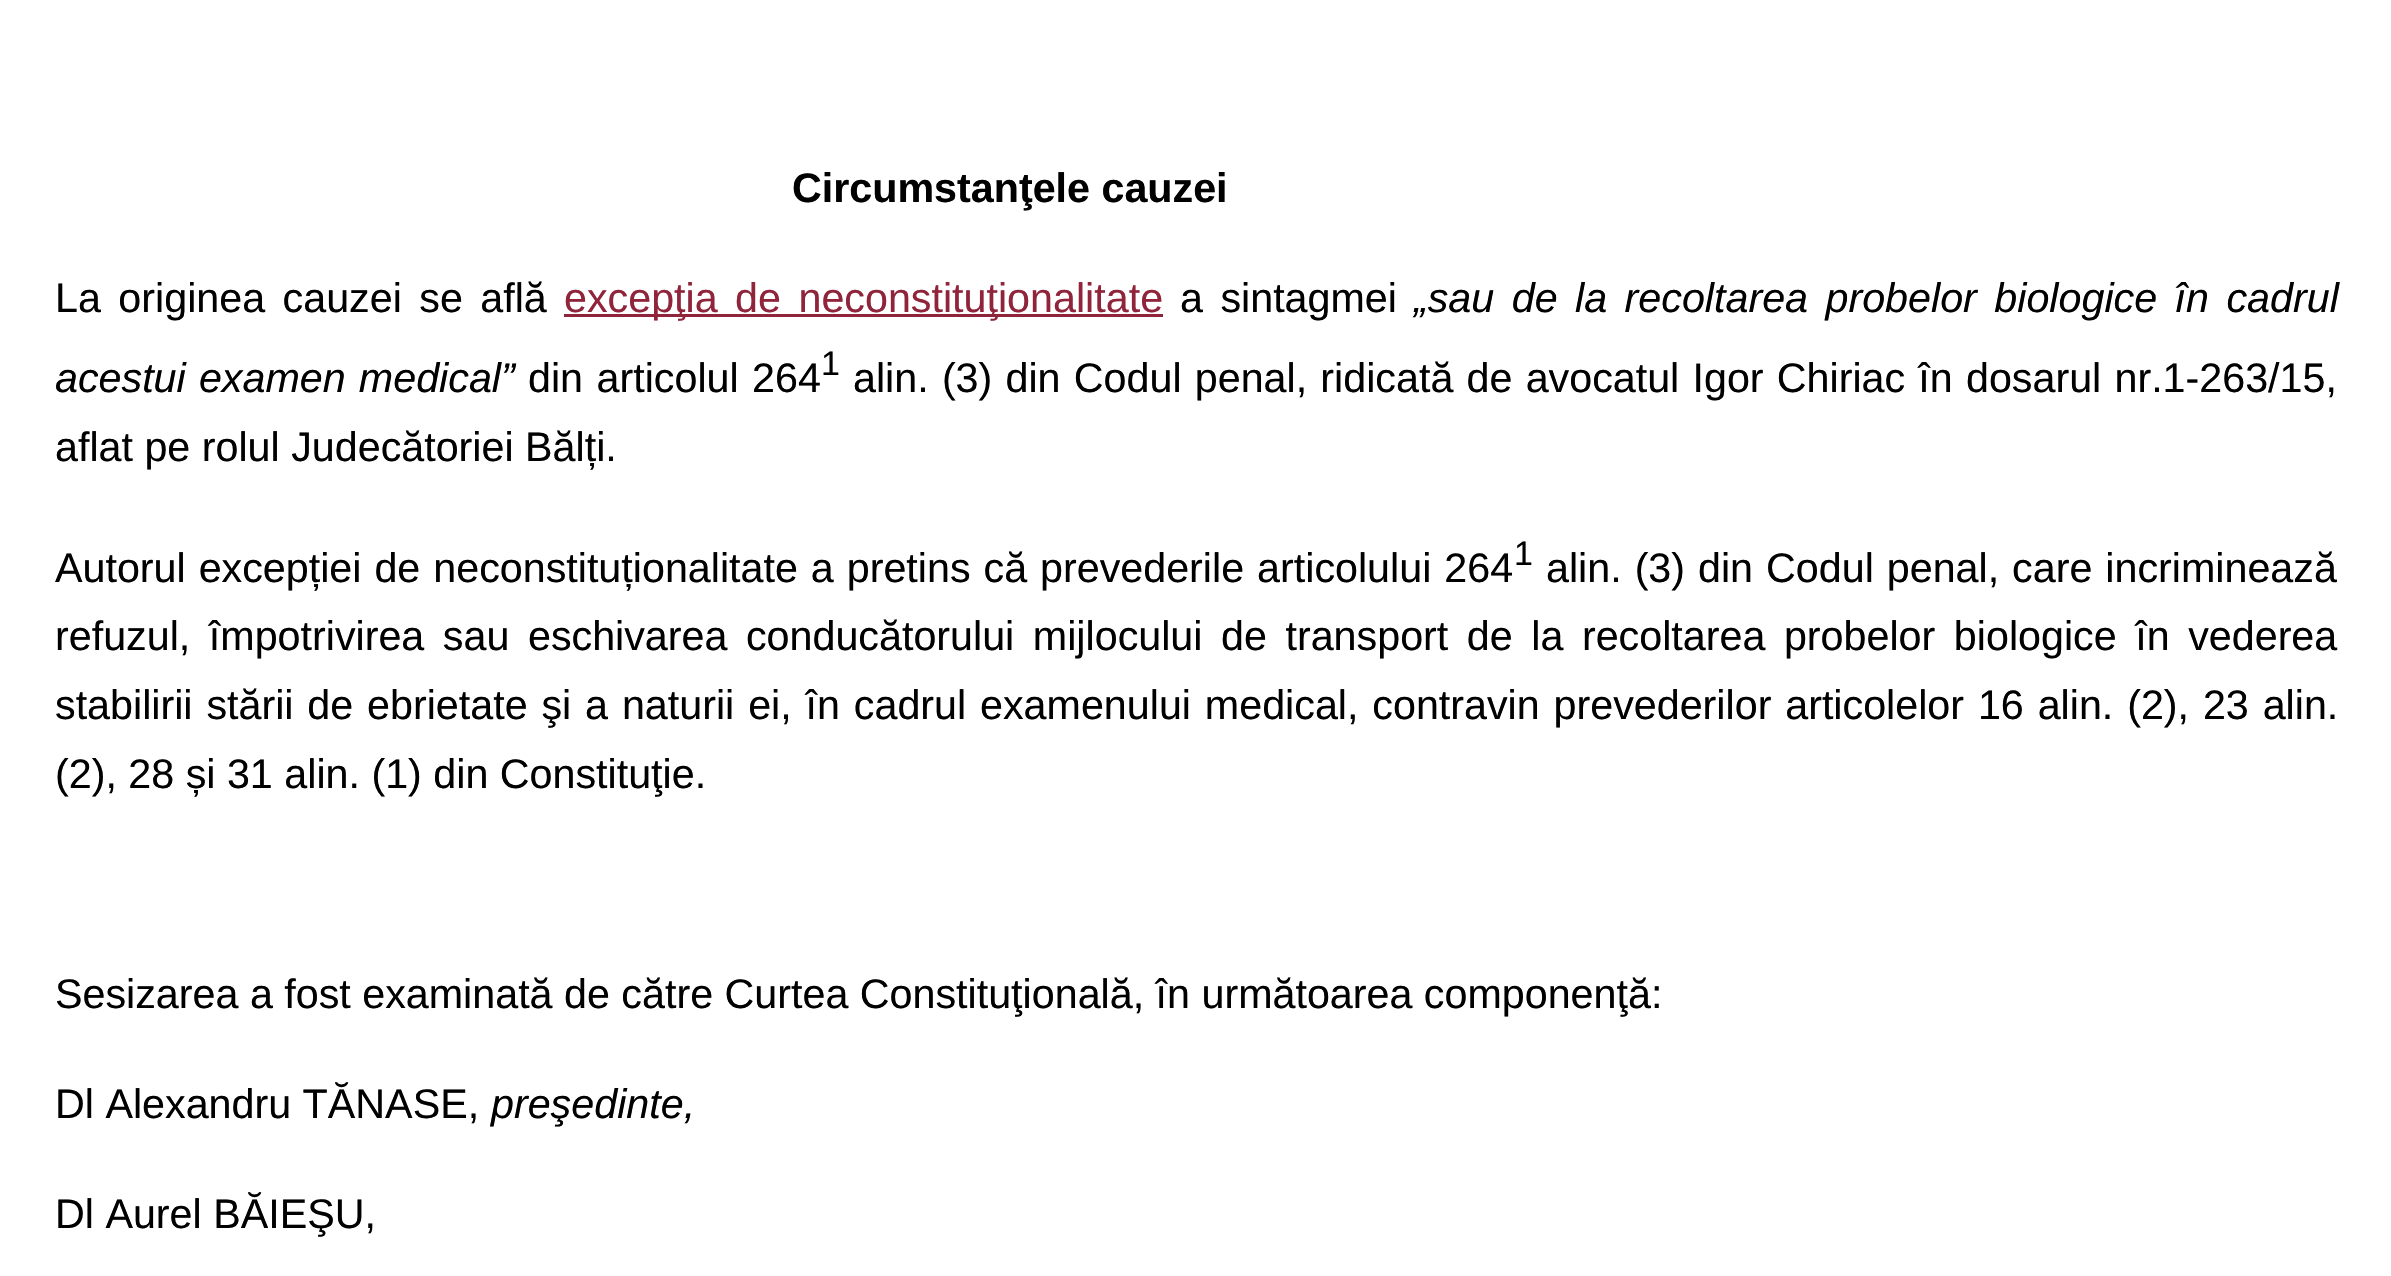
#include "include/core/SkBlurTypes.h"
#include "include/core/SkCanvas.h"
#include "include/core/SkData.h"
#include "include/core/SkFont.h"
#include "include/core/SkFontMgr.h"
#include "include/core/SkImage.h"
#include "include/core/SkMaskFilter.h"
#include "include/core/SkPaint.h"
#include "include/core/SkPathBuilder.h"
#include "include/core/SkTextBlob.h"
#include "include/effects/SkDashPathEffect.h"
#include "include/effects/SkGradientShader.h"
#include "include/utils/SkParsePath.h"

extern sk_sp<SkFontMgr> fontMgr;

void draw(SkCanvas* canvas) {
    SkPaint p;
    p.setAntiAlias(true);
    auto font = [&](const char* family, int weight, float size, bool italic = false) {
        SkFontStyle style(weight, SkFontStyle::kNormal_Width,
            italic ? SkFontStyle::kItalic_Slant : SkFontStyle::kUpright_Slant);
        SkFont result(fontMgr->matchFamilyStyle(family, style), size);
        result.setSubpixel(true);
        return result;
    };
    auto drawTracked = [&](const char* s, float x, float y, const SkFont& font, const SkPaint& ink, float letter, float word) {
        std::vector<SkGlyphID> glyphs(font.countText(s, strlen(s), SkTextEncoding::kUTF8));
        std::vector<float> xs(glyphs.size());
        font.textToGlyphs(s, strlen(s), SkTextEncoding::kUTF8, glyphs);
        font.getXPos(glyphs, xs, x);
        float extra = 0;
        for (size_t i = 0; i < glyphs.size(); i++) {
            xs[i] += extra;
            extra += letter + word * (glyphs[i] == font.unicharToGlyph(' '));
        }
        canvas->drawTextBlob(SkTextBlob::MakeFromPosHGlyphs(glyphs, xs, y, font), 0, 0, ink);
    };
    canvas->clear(0xFFFFFFFF);
    auto font1 = font("Liberation Sans", 700, 41.25f);
    p.setColor(0xFF000000);
    canvas->drawString("Circumstanţele cauzei", 792, 202, font1, p);
    auto font2 = font("Liberation Sans", 400, 41.25f);
    drawTracked("La originea cauzei se află", 55, 312, font2, p, 0, 6);
    p.setColor(0xFF8F243B);
    canvas->drawRect(SkRect::MakeLTRB(564, 314, 1163, 317), p);
    drawTracked("excepţia de neconstituţionalitate", 564, 312, font2, p, 0, 6);
    p.setColor(0xFF000000);
    drawTracked("a sintagmei", 1180, 312, font2, p, 0, 6);
    auto font3 = font("Liberation Sans", 400, 41.25f, true);
    drawTracked("„sau de la recoltarea probelor biologice în cadrul", 1414, 312, font3, p, 0, 6);
    drawTracked("acestui examen medical”", 55, 392, font3, p, 0, 1.75f);
    drawTracked("din articolul 264", 528, 392, font2, p, 0, 2);
    auto font4 = font("Liberation Sans", 400, 34);
    canvas->drawString("1", 821, 375, font4, p);
    drawTracked("alin. (3) din Codul penal, ridicată de avocatul Igor Chiriac în dosarul nr.1-263/15,", 853, 392, font2, p, 0, 1.75f);
    canvas->drawString("aflat pe rolul Judecătoriei Bălți.", 55, 461, font2, p);
    drawTracked("Autorul excepției de neconstituționalitate a pretins că prevederile articolului 264", 55, 582, font2, p, 0, 1.5f);
    canvas->drawString("1", 1514, 565, font4, p);
    drawTracked("alin. (3) din Codul penal, care incriminează", 1546, 582, font2, p, 0, 1.5f);
    drawTracked("refuzul, împotrivirea sau eschivarea conducătorului mijlocului de transport de la recoltarea probelor biologice în vederea", 55, 650, font2, p, 0, 7.1f);
    drawTracked("stabilirii stării de ebrietate şi a naturii ei, în cadrul examenului medical, contravin prevederilor articolelor 16 alin. (2), 23 alin.", 55, 719, font2, p, 0, 2.4f);
    {
        const struct { const char* s; float x, y; } items[] = {
            {"(2), 28 și 31 alin. (1) din Constituţie.", 55, 788},
            {"Sesizarea a fost examinată de către Curtea Constituţională, în următoarea componenţă:", 55, 1008},
            {"Dl Alexandru TĂNASE,", 55, 1118},
        };
        for (auto [s, x, y] : items) {
            canvas->drawString(s, x, y, font2, p);
        }
    }
    canvas->drawString("preşedinte,", 491, 1118, font3, p);
    canvas->drawString("Dl Aurel BĂIEŞU,", 55, 1228, font2, p);
}
